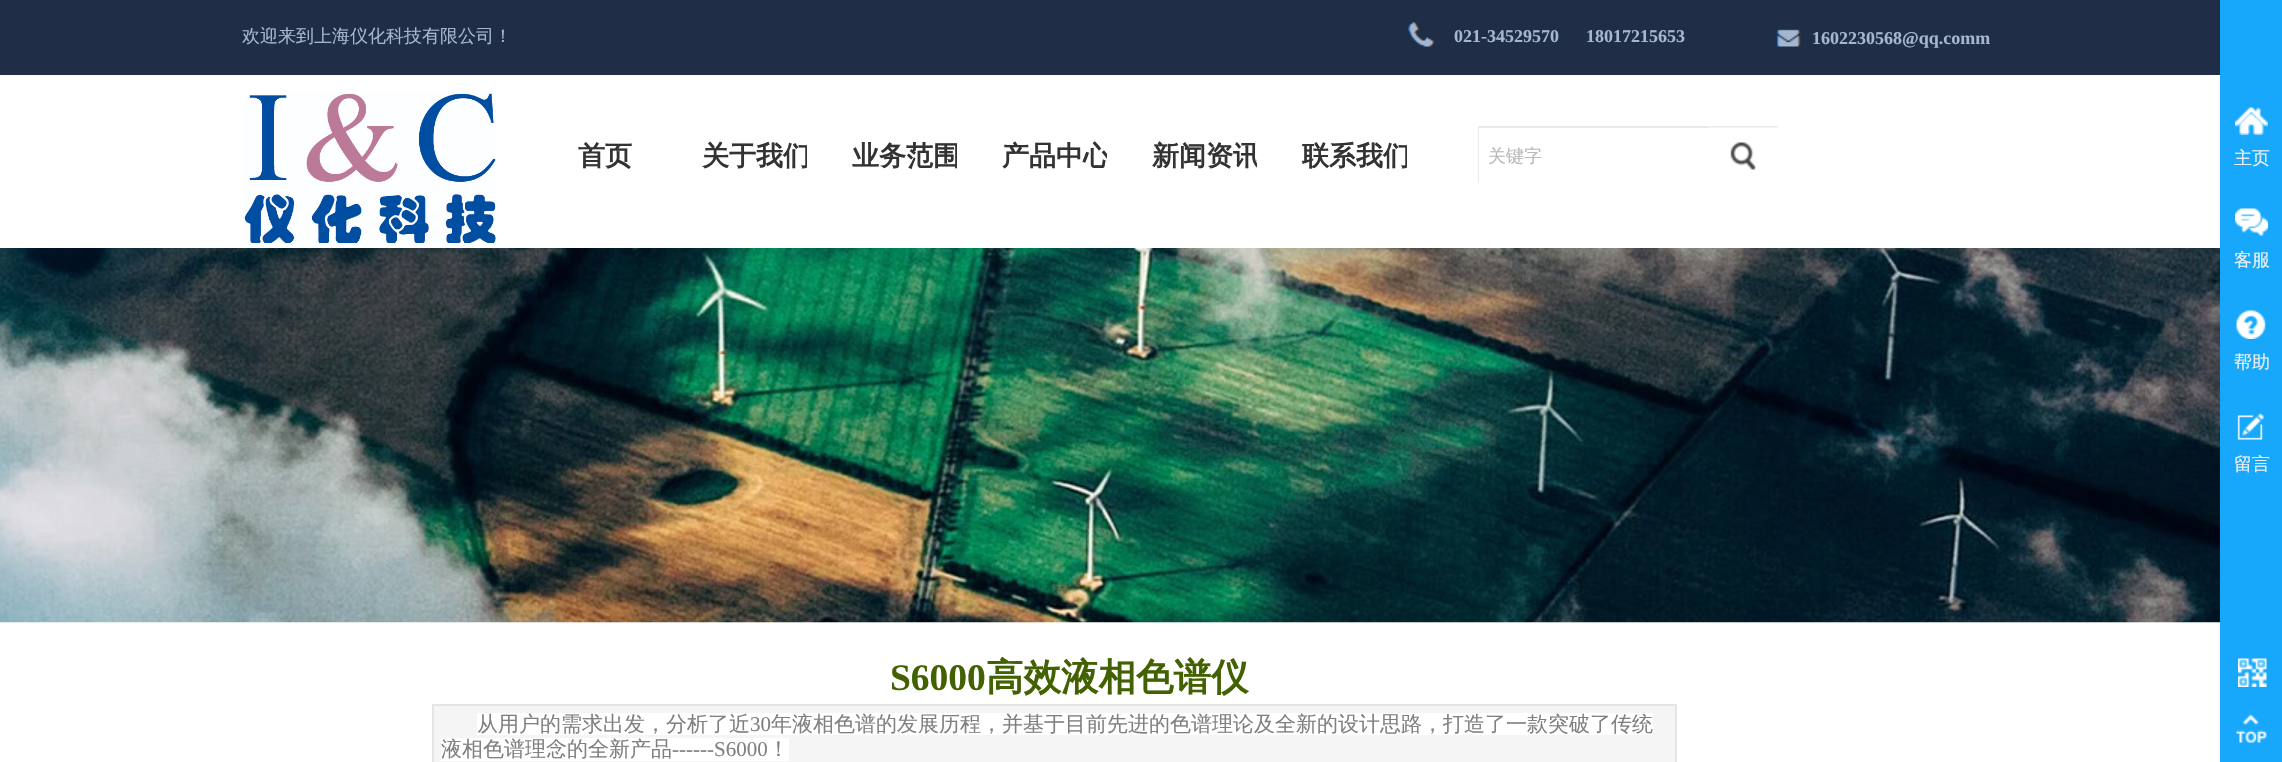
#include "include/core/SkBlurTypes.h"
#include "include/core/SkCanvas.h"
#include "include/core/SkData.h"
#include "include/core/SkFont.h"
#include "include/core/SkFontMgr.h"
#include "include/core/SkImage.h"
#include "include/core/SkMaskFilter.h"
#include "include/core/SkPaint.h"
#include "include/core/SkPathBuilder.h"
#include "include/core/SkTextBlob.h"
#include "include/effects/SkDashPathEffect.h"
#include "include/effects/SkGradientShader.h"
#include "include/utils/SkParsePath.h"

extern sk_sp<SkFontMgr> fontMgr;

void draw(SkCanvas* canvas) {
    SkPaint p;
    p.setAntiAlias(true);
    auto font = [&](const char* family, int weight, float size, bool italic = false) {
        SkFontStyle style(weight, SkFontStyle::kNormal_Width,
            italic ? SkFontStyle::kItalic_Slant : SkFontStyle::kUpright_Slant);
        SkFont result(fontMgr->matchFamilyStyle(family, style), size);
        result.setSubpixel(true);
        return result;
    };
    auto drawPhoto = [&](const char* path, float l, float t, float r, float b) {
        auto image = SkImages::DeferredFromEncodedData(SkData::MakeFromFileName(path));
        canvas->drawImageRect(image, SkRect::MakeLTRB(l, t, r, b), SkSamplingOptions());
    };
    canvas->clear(0xFFFFFFFF);
    p.setColor(0xFF1F2E46);
    canvas->drawRect(SkRect::MakeLTRB(0, 0, 2220, 75), p);
    auto font1 = font("WenQuanYi Zen Hei", 500, 18);
    p.setColor(0xFFA4B6D1);
    canvas->drawString("欢迎来到上海仪化科技有限公司！", 242, 42, font1, p);
    drawPhoto("media/1.png", 1408, 22, 1435, 47);
    auto font2 = font("Liberation Serif", 700, 18);
    canvas->drawString("021-34529570      18017215653", 1454, 42, font2, p);
    drawPhoto("media/2.png", 1775, 29, 1801, 47);
    canvas->drawString("1602230568@qq.comm", 1812, 44, font2, p);
    drawPhoto("media/3.png", 244, 92, 496, 243);
    auto font3 = font("WenQuanYi Zen Hei", 700, 27);
    p.setColor(0xFF333333);
    canvas->drawString("首页", 578, 165, font3, p);
    canvas->save();
    canvas->clipRect(SkRect::MakeLTRB(702, 119, 807, 194));
    canvas->drawString("关于我们", 702, 165, font3, p);
    canvas->restore();
    canvas->save();
    canvas->clipRect(SkRect::MakeLTRB(852, 119, 957, 194));
    canvas->drawString("业务范围", 852, 165, font3, p);
    canvas->restore();
    canvas->save();
    canvas->clipRect(SkRect::MakeLTRB(1002, 119, 1107, 194));
    canvas->drawString("产品中心", 1002, 165, font3, p);
    canvas->restore();
    canvas->save();
    canvas->clipRect(SkRect::MakeLTRB(1152, 119, 1257, 194));
    canvas->drawString("新闻资讯", 1152, 165, font3, p);
    canvas->restore();
    canvas->save();
    canvas->clipRect(SkRect::MakeLTRB(1302, 119, 1407, 194));
    canvas->drawString("联系我们", 1302, 165, font3, p);
    canvas->restore();
    p.setStyle(SkPaint::kStroke_Style);
    p.setStrokeWidth(2);
    p.setColor(0xFFEAEAEA);
    canvas->drawRect(SkRect::MakeLTRB(1479, 127, 1777, 182), p);
    p.setStyle(SkPaint::kFill_Style);
    p.setColor(0xFFFFFFFF);
    canvas->drawRect(SkRect::MakeLTRB(1479, 128, 1709, 183), p);
    p.setColor(0xFFB8B8B8);
    canvas->drawString("关键字", 1488, 162, font1, p);
    drawPhoto("media/4.png", 1708, 127, 1778, 183);
    drawPhoto("media/5.png", 0, 248, 2220, 623);
    auto font4 = font("Liberation Serif", 700, 37.5f);
    p.setColor(0xFF426100);
    canvas->drawString("S6000", 890, 690, font4, p);
    auto font5 = font("WenQuanYi Zen Hei", 700, 37.5f);
    canvas->drawString("高效液相色谱仪", 986, 690, font5, p);
    p.setColor(0xFFF5F5F5);
    canvas->drawRect(SkRect::MakeLTRB(433, 705, 1676, 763), p);
    p.setStyle(SkPaint::kStroke_Style);
    p.setColor(0xFFE5E5E5);
    canvas->drawRect(SkRect::MakeLTRB(433, 705, 1676, 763), p);
    p.setStyle(SkPaint::kFill_Style);
    p.setColor(0xFFFFFFFF);
    canvas->drawRect(SkRect::MakeLTRB(477, 713, 1653, 735), p);
    auto font6 = font("WenQuanYi Zen Hei", 500, 21);
    p.setColor(0xFF808080);
    canvas->drawString("从用户的需求出发，分析了近", 477, 731, font6, p);
    auto font7 = font("Liberation Serif", 400, 21);
    canvas->drawString("30", 750, 731, font7, p);
    canvas->drawString("年液相色谱的发展历程，并基于目前先进的色谱理论及全新的设计思路，打造了一款突破了传统", 771, 731, font6, p);
    p.setColor(0xFFFFFFFF);
    canvas->drawRect(SkRect::MakeLTRB(441, 738, 789, 761), p);
    p.setColor(0xFF808080);
    canvas->drawString("液相色谱理念的全新产品", 441, 756, font6, p);
    canvas->drawString("------S6000", 672, 756, font7, p);
    canvas->drawString("！", 768, 756, font6, p);
    p.setColor(0xFF17A8FB);
    canvas->drawRect(SkRect::MakeLTRB(2220, 0, 2282, 762), p);
    drawPhoto("media/6.png", 2235, 107, 2268, 135);
    p.setColor(0xFFEFEFEF);
    canvas->drawString("主页", 2234, 164, font1, p);
    drawPhoto("media/7.png", 2235, 208, 2268, 236);
    canvas->drawString("客服", 2234, 266, font1, p);
    drawPhoto("media/8.png", 2236, 310, 2266, 339);
    canvas->drawString("帮助", 2234, 368, font1, p);
    drawPhoto("media/9.png", 2237, 413, 2264, 440);
    canvas->drawString("留言", 2234, 470, font1, p);
    drawPhoto("media/10.png", 2238, 658, 2267, 687);
    drawPhoto("media/11.png", 2236, 714, 2267, 743);
}
